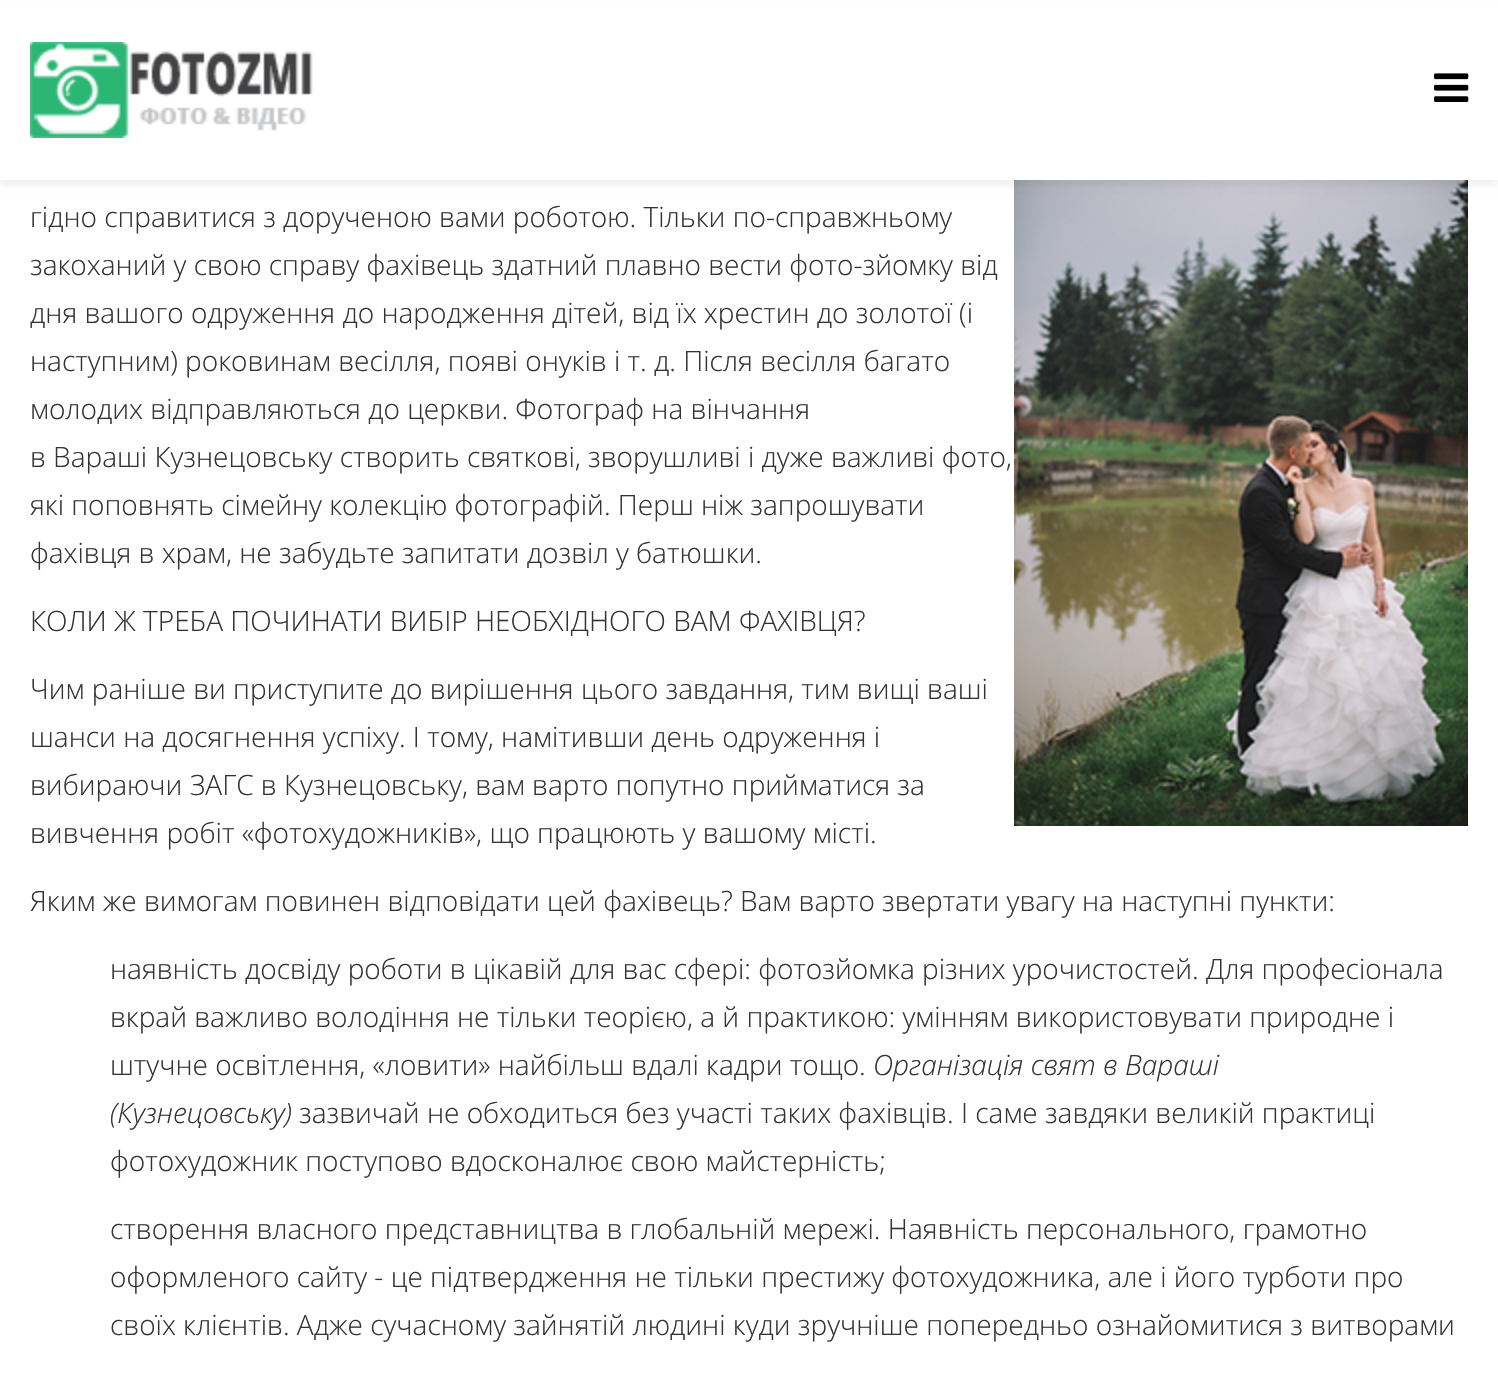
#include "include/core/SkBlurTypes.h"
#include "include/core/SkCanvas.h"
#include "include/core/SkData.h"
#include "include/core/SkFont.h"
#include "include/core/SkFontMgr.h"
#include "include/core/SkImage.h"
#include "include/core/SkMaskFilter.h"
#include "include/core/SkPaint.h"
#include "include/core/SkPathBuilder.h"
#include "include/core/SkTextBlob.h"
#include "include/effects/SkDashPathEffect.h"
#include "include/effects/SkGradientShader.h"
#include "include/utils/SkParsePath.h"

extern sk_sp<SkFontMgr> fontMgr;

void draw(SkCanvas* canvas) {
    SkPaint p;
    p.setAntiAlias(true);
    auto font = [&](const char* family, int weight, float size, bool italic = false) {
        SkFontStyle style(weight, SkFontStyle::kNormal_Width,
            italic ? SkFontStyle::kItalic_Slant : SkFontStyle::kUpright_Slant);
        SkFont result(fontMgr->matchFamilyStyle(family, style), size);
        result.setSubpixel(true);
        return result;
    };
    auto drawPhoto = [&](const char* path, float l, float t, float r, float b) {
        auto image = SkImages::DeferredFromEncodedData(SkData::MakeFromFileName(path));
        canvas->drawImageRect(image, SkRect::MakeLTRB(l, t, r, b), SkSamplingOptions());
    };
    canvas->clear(0xFFFFFFFF);
    drawPhoto("media/3.png", 1014, 180, 1468, 826);
    p.setColor(0x0D000000);
    p.setMaskFilter(SkMaskFilter::MakeBlur(kNormal_SkBlurStyle, 3));
    canvas->drawRect(SkRect::MakeLTRB(0, 6, 1498, 186), p);
    p.setMaskFilter(nullptr);
    p.setColor(0xFFFFFFFF);
    canvas->drawRect(SkRect::MakeLTRB(0, 3, 1498, 180), p);
    drawPhoto("media/1.png", 30, 42, 313, 138);
    drawPhoto("media/2.png", 1434, 73, 1469, 102);
    auto font1 = font("Open Sans", 300, 28);
    p.setColor(0xFF333333);
    {
        const struct { const char* s; float x, y; } items[] = {
            {"гідно справитися з дорученою вами роботою. Тільки по-справжньому", 30, 227},
            {"закоханий у свою справу фахівець здатний плавно вести фото-зйомку від", 30, 275},
            {"дня вашого одруження до народження дітей, від їх хрестин до золотої (і", 30, 323},
            {"наступним) роковинам весілля, появі онуків і т. д. Після весілля багато", 30, 371},
            {"молодих відправляються до церкви. Фотограф на вінчання", 30, 419},
            {"в Вараші Кузнецовську створить святкові, зворушливі і дуже важливі фото,", 30, 467},
            {"які поповнять сімейну колекцію фотографій. Перш ніж запрошувати", 30, 515},
            {"фахівця в храм, не забудьте запитати дозвіл у батюшки.", 30, 563},
            {"КОЛИ Ж ТРЕБА ПОЧИНАТИ ВИБІР НЕОБХІДНОГО ВАМ ФАХІВЦЯ?", 30, 631},
            {"Чим раніше ви приступите до вирішення цього завдання, тим вищі ваші", 30, 699},
            {"шанси на досягнення успіху. І тому, намітивши день одруження і", 30, 747},
            {"вибираючи ЗАГС в Кузнецовську, вам варто попутно прийматися за", 30, 795},
            {"вивчення робіт «фотохудожників», що працюють у вашому місті.", 30, 843},
            {"Яким же вимогам повинен відповідати цей фахівець? Вам варто звертати увагу на наступні пункти:", 30, 911},
            {"наявність досвіду роботи в цікавій для вас сфері: фотозйомка різних урочистостей. Для професіонала", 110, 979},
            {"вкрай важливо володіння не тільки теорією, а й практикою: умінням використовувати природне і", 110, 1027},
            {"штучне освітлення, «ловити» найбільш вдалі кадри тощо.", 110, 1075},
        };
        for (auto [s, x, y] : items) {
            canvas->drawString(s, x, y, font1, p);
        }
    }
    auto font2 = font("Open Sans", 300, 28, true);
    canvas->drawString("Організація свят в Вараші", 873, 1075, font2, p);
    canvas->drawString("(Кузнецовську)", 110, 1123, font2, p);
    {
        const struct { const char* s; float x, y; } items[] = {
            {"зазвичай не обходиться без участі таких фахівців. І саме завдяки великій практиці", 299, 1123},
            {"фотохудожник поступово вдосконалює свою майстерність;", 110, 1171},
            {"створення власного представництва в глобальній мережі. Наявність персонального, грамотно", 110, 1239},
            {"оформленого сайту - це підтвердження не тільки престижу фотохудожника, але і його турботи про", 110, 1287},
            {"своїх клієнтів. Адже сучасному зайнятій людині куди зручніше попередньо ознайомитися з витворами", 110, 1335},
        };
        for (auto [s, x, y] : items) {
            canvas->drawString(s, x, y, font1, p);
        }
    }
}
